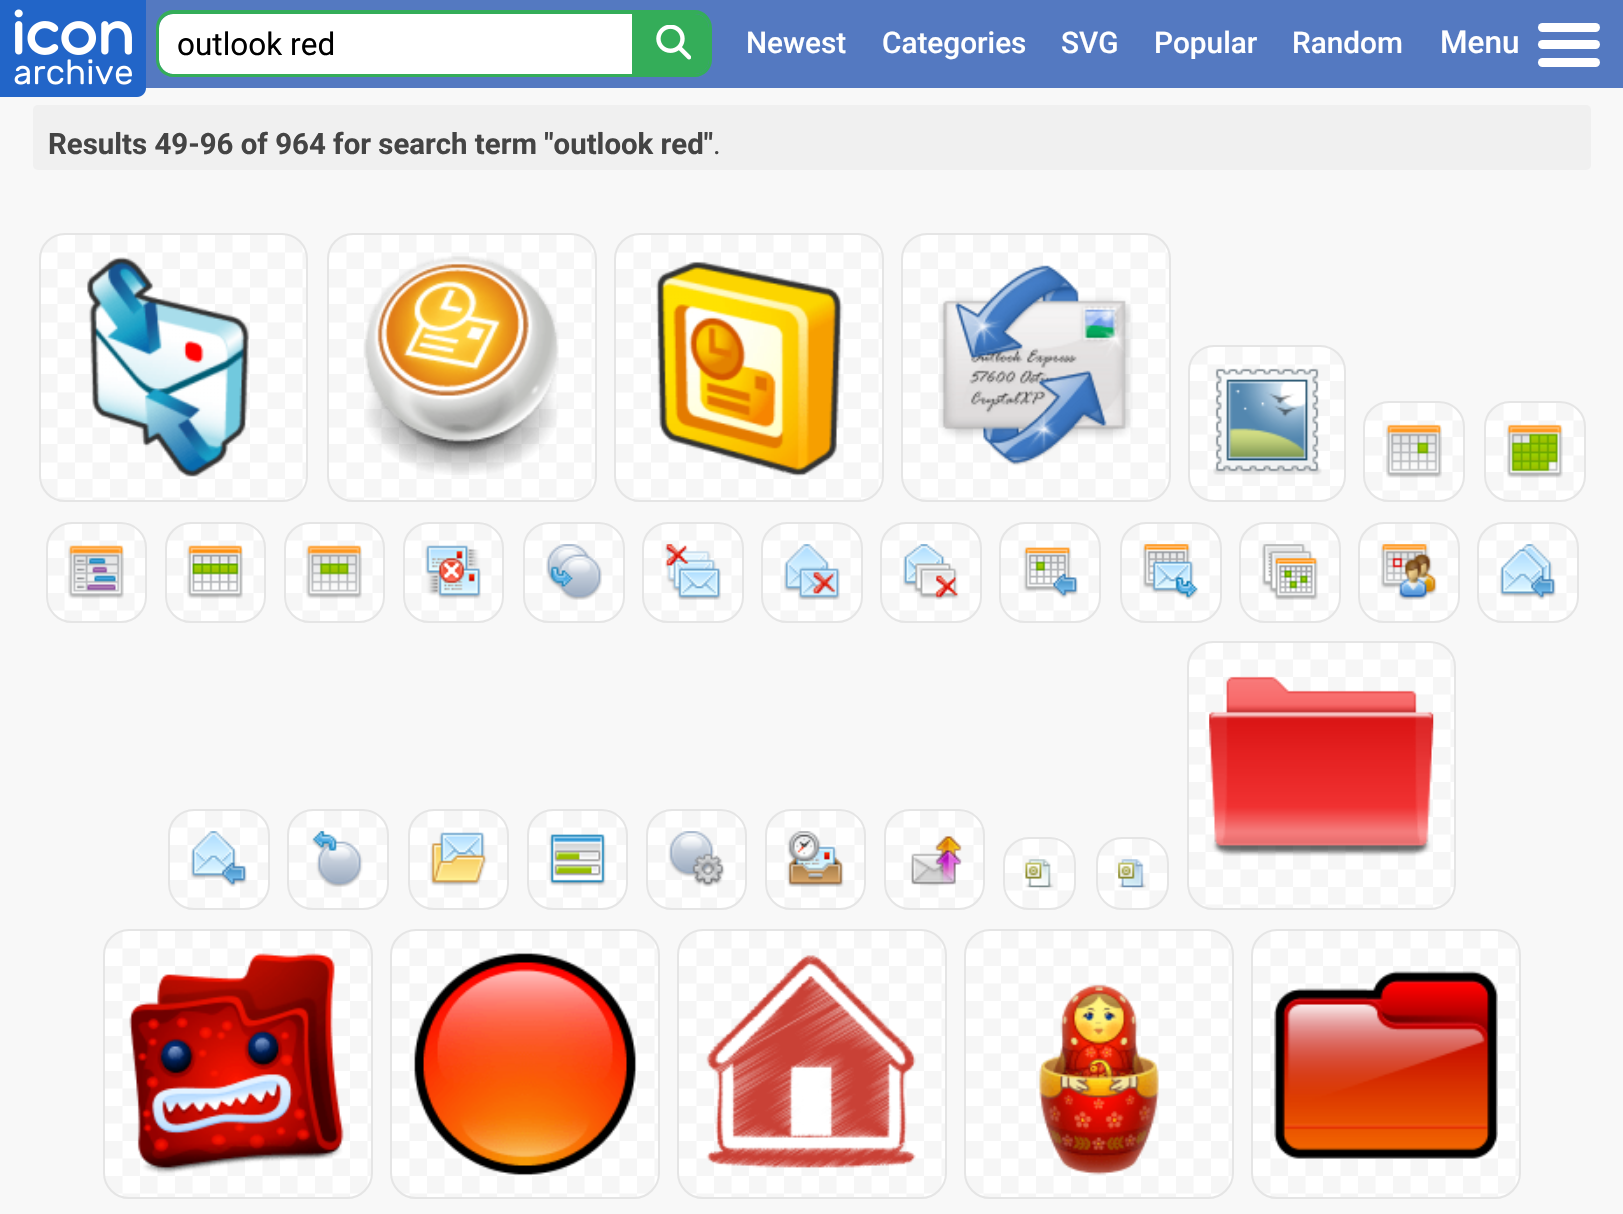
#include "include/core/SkBlurTypes.h"
#include "include/core/SkCanvas.h"
#include "include/core/SkData.h"
#include "include/core/SkFont.h"
#include "include/core/SkFontMgr.h"
#include "include/core/SkImage.h"
#include "include/core/SkMaskFilter.h"
#include "include/core/SkPaint.h"
#include "include/core/SkPathBuilder.h"
#include "include/core/SkTextBlob.h"
#include "include/effects/SkDashPathEffect.h"
#include "include/effects/SkGradientShader.h"
#include "include/utils/SkParsePath.h"

extern sk_sp<SkFontMgr> fontMgr;

void draw(SkCanvas* canvas) {
    SkPaint p;
    p.setAntiAlias(true);
    auto font = [&](const char* family, int weight, float size, bool italic = false) {
        SkFontStyle style(weight, SkFontStyle::kNormal_Width,
            italic ? SkFontStyle::kItalic_Slant : SkFontStyle::kUpright_Slant);
        SkFont result(fontMgr->matchFamilyStyle(family, style), size);
        result.setSubpixel(true);
        return result;
    };
    auto drawPhoto = [&](const char* path, float l, float t, float r, float b) {
        auto image = SkImages::DeferredFromEncodedData(SkData::MakeFromFileName(path));
        canvas->drawImageRect(image, SkRect::MakeLTRB(l, t, r, b), SkSamplingOptions());
    };
    canvas->clear(0xFFF8F8F8);
    p.setColor(0xFF5479C1);
    canvas->drawRect(SkRect::MakeLTRB(146, 0, 1623, 88), p);
    drawPhoto("media/1.png", 0, 0, 146, 97);
    p.setColor(0xFFFFFFFF);
    canvas->drawPath(SkPathBuilder().moveTo(173, 14).lineTo(632, 14).lineTo(632, 74).lineTo(173, 74).cubicTo(165.5f, 74, 159, 67.5f, 159, 60).lineTo(159, 28).cubicTo(159, 20.5f, 165.5f, 14, 173, 14).close().detach(), p);
    p.setColor(0xFF34AD59);
    canvas->drawPath(SkPathBuilder(SkPathFillType::kEvenOdd).moveTo(173, 10).lineTo(632, 10).lineTo(632, 77).lineTo(173, 77).cubicTo(164, 77, 156, 69, 156, 60).lineTo(156, 28).cubicTo(156, 18, 164, 10, 173, 10).close().moveTo(173, 14).lineTo(632, 14).lineTo(632, 74).lineTo(173, 74).cubicTo(166, 74, 159, 67, 159, 60).lineTo(159, 28).cubicTo(159, 20, 166, 14, 173, 14).close().detach(), p);
    auto font1 = font("Roboto", 400, 31.5f);
    p.setColor(0xFF000000);
    canvas->drawString("outlook red", 177, 55, font1, p);
    p.setColor(0xFF34AD59);
    canvas->drawPath(SkPathBuilder().moveTo(632, 14).lineTo(695, 14).cubicTo(702.5f, 14, 709, 20.5f, 709, 28).lineTo(709, 60).cubicTo(709, 67.5f, 702.5f, 74, 695, 74).lineTo(632, 74).close().detach(), p);
    canvas->drawPath(SkPathBuilder(SkPathFillType::kEvenOdd).moveTo(632, 10).lineTo(695, 10).cubicTo(704, 10, 712, 18, 712, 28).lineTo(712, 60).cubicTo(712, 69, 704, 77, 695, 77).lineTo(632, 77).close().moveTo(632, 14).lineTo(695, 14).cubicTo(702, 14, 709, 20, 709, 28).lineTo(709, 60).cubicTo(709, 67, 702, 74, 695, 74).lineTo(632, 74).close().detach(), p);
    drawPhoto("media/2.png", 656, 25, 691, 60);
    auto font2 = font("Roboto", 500, 29.75f);
    p.setColor(0xFFFFFFFF);
    {
        const struct { const char* s; float x, y; } items[] = {
            {"Newest", 746, 53},
            {"Categories", 882, 53},
            {"SVG", 1061, 53},
            {"Popular", 1154, 53},
            {"Random", 1292, 53},
        };
        for (auto [s, x, y] : items) {
            canvas->drawString(s, x, y, font2, p);
        }
    }
    auto font3 = font("Roboto", 500, 31.5f);
    canvas->drawString("Menu", 1440, 53, font3, p);
    canvas->drawRoundRect(SkRect::MakeLTRB(1538, 23, 1600, 32), 4.5f, 4.5f, p);
    canvas->drawRoundRect(SkRect::MakeLTRB(1538, 40, 1600, 49), 4.5f, 4.5f, p);
    canvas->drawRoundRect(SkRect::MakeLTRB(1538, 58, 1600, 67), 4.5f, 4.5f, p);
    p.setColor(0xFFF0F0F0);
    canvas->drawRoundRect(SkRect::MakeLTRB(33, 105, 1591, 170), 5, 5, p);
    auto font4 = font("Roboto", 700, 29.4f);
    p.setColor(0xFF444444);
    canvas->drawString("Results 49-96 of 964 for search term \"outlook red\"", 48, 154, font4, p);
    auto font5 = font("Roboto", 400, 29.4f);
    canvas->drawString(".", 713, 154, font5, p);
    drawPhoto("media/3.png", 39, 233, 308, 502);
    p.setStyle(SkPaint::kStroke_Style);
    p.setStrokeWidth(2);
    p.setColor(0xFFE5E5E5);
    canvas->drawRoundRect(SkRect::MakeLTRB(40, 234, 307, 501), 25, 25, p);
    drawPhoto("media/4.png", 87, 257, 249, 477);
    drawPhoto("media/5.png", 328, 233, 596, 502);
    canvas->drawRoundRect(SkRect::MakeLTRB(328, 234, 596, 501), 25, 25, p);
    drawPhoto("media/6.png", 363, 256, 559, 475);
    drawPhoto("media/5.png", 615, 233, 883, 502);
    canvas->drawRoundRect(SkRect::MakeLTRB(615, 234, 883, 501), 25, 25, p);
    drawPhoto("media/7.png", 656, 261, 843, 477);
    drawPhoto("media/5.png", 902, 233, 1170, 502);
    canvas->drawRoundRect(SkRect::MakeLTRB(902, 234, 1170, 501), 25, 25, p);
    drawPhoto("media/8.png", 939, 265, 1133, 466);
    drawPhoto("media/9.png", 1189, 345, 1345, 502);
    canvas->drawRoundRect(SkRect::MakeLTRB(1189, 346, 1345, 501), 25, 25, p);
    drawPhoto("media/10.png", 1213, 368, 1322, 475);
    drawPhoto("media/11.png", 1364, 401, 1464, 502);
    canvas->drawRoundRect(SkRect::MakeLTRB(1364, 402, 1464, 501), 25, 25, p);
    drawPhoto("media/12.png", 1386, 424, 1442, 478);
    drawPhoto("media/13.png", 1484, 401, 1585, 502);
    canvas->drawRoundRect(SkRect::MakeLTRB(1485, 402, 1585, 501), 25, 25, p);
    drawPhoto("media/14.png", 1507, 424, 1563, 478);
    drawPhoto("media/15.png", 46, 522, 147, 623);
    canvas->drawRoundRect(SkRect::MakeLTRB(47, 523, 146, 622), 25, 25, p);
    drawPhoto("media/16.png", 68, 545, 124, 599);
    drawPhoto("media/17.png", 165, 522, 266, 623);
    canvas->drawRoundRect(SkRect::MakeLTRB(166, 523, 265, 622), 25, 25, p);
    drawPhoto("media/18.png", 187, 545, 243, 599);
    drawPhoto("media/19.png", 284, 522, 385, 623);
    canvas->drawRoundRect(SkRect::MakeLTRB(285, 523, 384, 622), 25, 25, p);
    drawPhoto("media/20.png", 306, 545, 362, 599);
    drawPhoto("media/19.png", 403, 522, 504, 623);
    canvas->drawRoundRect(SkRect::MakeLTRB(404, 523, 503, 622), 25, 25, p);
    drawPhoto("media/21.png", 425, 545, 481, 599);
    drawPhoto("media/22.png", 524, 522, 624, 623);
    canvas->drawRoundRect(SkRect::MakeLTRB(524, 523, 624, 622), 25, 25, p);
    drawPhoto("media/23.png", 546, 544, 602, 600);
    drawPhoto("media/24.png", 643, 522, 743, 623);
    canvas->drawRoundRect(SkRect::MakeLTRB(643, 523, 743, 622), 25, 25, p);
    drawPhoto("media/25.png", 665, 544, 721, 600);
    drawPhoto("media/26.png", 762, 522, 862, 623);
    canvas->drawRoundRect(SkRect::MakeLTRB(762, 523, 862, 622), 25, 25, p);
    drawPhoto("media/27.png", 784, 544, 840, 600);
    drawPhoto("media/22.png", 881, 522, 981, 623);
    canvas->drawRoundRect(SkRect::MakeLTRB(881, 523, 981, 622), 25, 25, p);
    drawPhoto("media/28.png", 903, 544, 959, 600);
    drawPhoto("media/29.png", 1000, 522, 1100, 623);
    canvas->drawRoundRect(SkRect::MakeLTRB(1000, 523, 1100, 622), 25, 25, p);
    drawPhoto("media/30.png", 1023, 547, 1078, 599);
    drawPhoto("media/31.png", 1120, 522, 1221, 623);
    canvas->drawRoundRect(SkRect::MakeLTRB(1121, 523, 1221, 622), 25, 25, p);
    drawPhoto("media/32.png", 1143, 544, 1199, 600);
    drawPhoto("media/31.png", 1239, 522, 1340, 623);
    canvas->drawRoundRect(SkRect::MakeLTRB(1240, 523, 1340, 622), 25, 25, p);
    drawPhoto("media/33.png", 1262, 544, 1318, 600);
    drawPhoto("media/31.png", 1358, 522, 1459, 623);
    canvas->drawRoundRect(SkRect::MakeLTRB(1359, 523, 1459, 622), 25, 25, p);
    drawPhoto("media/34.png", 1381, 544, 1437, 600);
    drawPhoto("media/35.png", 1477, 522, 1578, 623);
    canvas->drawRoundRect(SkRect::MakeLTRB(1478, 523, 1578, 622), 25, 25, p);
    drawPhoto("media/36.png", 1500, 544, 1556, 600);
    drawPhoto("media/37.png", 168, 809, 269, 910);
    canvas->drawRoundRect(SkRect::MakeLTRB(169, 810, 269, 909), 25, 25, p);
    drawPhoto("media/38.png", 191, 831, 247, 887);
    drawPhoto("media/35.png", 287, 809, 388, 910);
    canvas->drawRoundRect(SkRect::MakeLTRB(288, 810, 388, 909), 25, 25, p);
    drawPhoto("media/39.png", 312, 831, 363, 887);
    drawPhoto("media/40.png", 408, 809, 509, 910);
    canvas->drawRoundRect(SkRect::MakeLTRB(409, 810, 508, 909), 25, 25, p);
    drawPhoto("media/41.png", 430, 832, 487, 886);
    drawPhoto("media/40.png", 527, 809, 628, 910);
    canvas->drawRoundRect(SkRect::MakeLTRB(528, 810, 627, 909), 25, 25, p);
    drawPhoto("media/42.png", 549, 834, 606, 886);
    drawPhoto("media/40.png", 646, 809, 747, 910);
    canvas->drawRoundRect(SkRect::MakeLTRB(647, 810, 746, 909), 25, 25, p);
    drawPhoto("media/43.png", 668, 831, 725, 887);
    drawPhoto("media/40.png", 765, 809, 866, 910);
    canvas->drawRoundRect(SkRect::MakeLTRB(766, 810, 865, 909), 25, 25, p);
    drawPhoto("media/44.png", 787, 831, 844, 887);
    drawPhoto("media/40.png", 884, 809, 985, 910);
    canvas->drawRoundRect(SkRect::MakeLTRB(885, 810, 984, 909), 25, 25, p);
    drawPhoto("media/45.png", 911, 836, 962, 886);
    drawPhoto("media/46.png", 1003, 837, 1076, 910);
    canvas->drawRoundRect(SkRect::MakeLTRB(1004, 838, 1075, 909), 25, 25, p);
    drawPhoto("media/47.png", 1025, 859, 1054, 888);
    drawPhoto("media/48.png", 1096, 837, 1169, 910);
    canvas->drawRoundRect(SkRect::MakeLTRB(1097, 838, 1168, 909), 25, 25, p);
    drawPhoto("media/49.png", 1118, 859, 1146, 888);
    drawPhoto("media/50.png", 1187, 641, 1456, 910);
    canvas->drawRoundRect(SkRect::MakeLTRB(1188, 642, 1455, 909), 25, 25, p);
    drawPhoto("media/51.png", 1209, 676, 1434, 856);
    drawPhoto("media/52.png", 104, 930, 372, 1198);
    canvas->drawRoundRect(SkRect::MakeLTRB(104, 930, 372, 1198), 25, 25, p);
    drawPhoto("media/53.png", 129, 953, 344, 1174);
    drawPhoto("media/54.png", 391, 930, 659, 1198);
    canvas->drawRoundRect(SkRect::MakeLTRB(391, 930, 659, 1198), 25, 25, p);
    drawPhoto("media/55.png", 414, 953, 636, 1175);
    drawPhoto("media/52.png", 678, 930, 946, 1198);
    canvas->drawRoundRect(SkRect::MakeLTRB(678, 930, 946, 1198), 25, 25, p);
    drawPhoto("media/56.png", 706, 955, 916, 1168);
    drawPhoto("media/52.png", 965, 930, 1233, 1198);
    canvas->drawRoundRect(SkRect::MakeLTRB(965, 930, 1233, 1198), 25, 25, p);
    drawPhoto("media/57.png", 1039, 984, 1159, 1175);
    drawPhoto("media/58.png", 1252, 930, 1520, 1198);
    canvas->drawRoundRect(SkRect::MakeLTRB(1252, 930, 1520, 1198), 25, 25, p);
    drawPhoto("media/59.png", 1274, 971, 1498, 1159);
}
